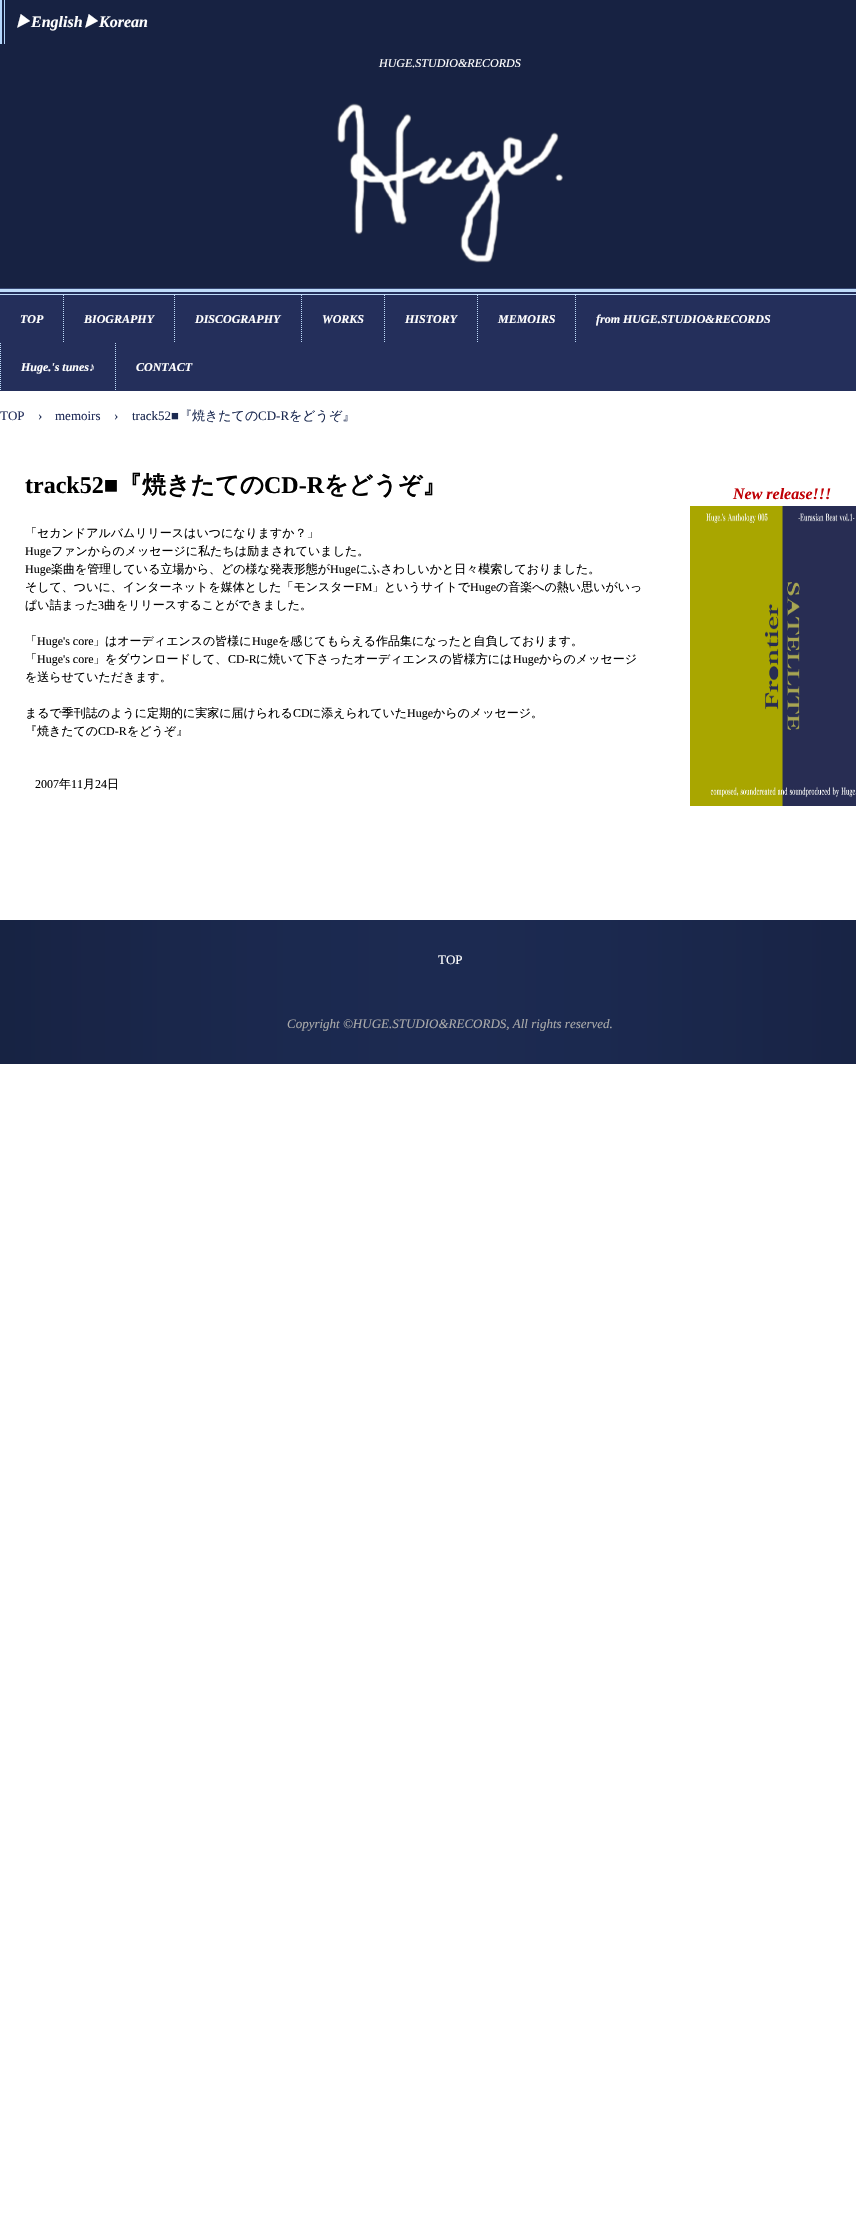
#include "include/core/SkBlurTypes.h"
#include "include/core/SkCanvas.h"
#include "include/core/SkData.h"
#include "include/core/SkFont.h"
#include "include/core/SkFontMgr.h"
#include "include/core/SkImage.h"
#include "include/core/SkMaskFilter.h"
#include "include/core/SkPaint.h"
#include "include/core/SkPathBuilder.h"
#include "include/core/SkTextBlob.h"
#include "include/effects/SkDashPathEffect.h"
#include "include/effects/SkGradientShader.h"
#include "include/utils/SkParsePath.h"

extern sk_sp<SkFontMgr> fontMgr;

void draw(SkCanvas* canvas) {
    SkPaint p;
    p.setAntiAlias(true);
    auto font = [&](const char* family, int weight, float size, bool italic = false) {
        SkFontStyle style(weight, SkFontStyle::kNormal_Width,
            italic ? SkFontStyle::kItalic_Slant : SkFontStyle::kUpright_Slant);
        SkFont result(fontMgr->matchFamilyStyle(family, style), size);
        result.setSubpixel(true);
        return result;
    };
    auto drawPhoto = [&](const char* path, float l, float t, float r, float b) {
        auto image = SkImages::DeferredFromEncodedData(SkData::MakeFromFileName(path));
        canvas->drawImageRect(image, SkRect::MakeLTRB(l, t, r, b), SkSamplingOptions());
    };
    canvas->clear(0xFFFFFFFF);
    {
        const struct { float l, t, r, b; SkColor color; } items[] = {
            {2, 0, 856, 44, 0xFF172242},
            {0, 0, 2, 44, 0xFFB4D6FA},
            {4, 0, 5, 44, 0xFFB4D6FA},
        };
        for (auto [l, t, r, b, color] : items) {
            p.setColor(color);
            canvas->drawRect(SkRect::MakeLTRB(l, t, r, b), p);
        }
    }
    auto font1 = font("WenQuanYi Zen Hei", 700, 16, true);
    p.setColor(0xFFFFFFFF);
    canvas->drawString("▶", 15, 27, font1, p);
    auto font2 = font("Liberation Serif", 700, 16, true);
    canvas->drawString("English", 31, 27, font2, p);
    canvas->drawString("▶", 83, 27, font1, p);
    canvas->drawString("Korean", 99, 27, font2, p);
    p.setColor(0xFF172242);
    canvas->drawRect(SkRect::MakeLTRB(0, 44, 856, 288), p);
    p.setColor(0xFF374874);
    canvas->drawRect(SkRect::MakeLTRB(0, 288, 856, 289), p);
    auto font3 = font("Liberation Serif", 400, 12, true);
    p.setColor(0xFFFFFFFF);
    canvas->drawString("HUGE.STUDIO&RECORDS", 379, 67, font3, p);
    drawPhoto("media/1.png", 337, 103, 563, 263);
    {
        const struct { float l, t, r, b; SkColor color; } items[] = {
            {0, 292, 856, 391, 0xFF242F5B},
            {0, 289, 856, 292, 0xFFBFDCFA},
            {0, 294, 856, 295, 0xFFBFDCFA},
        };
        for (auto [l, t, r, b, color] : items) {
            p.setColor(color);
            canvas->drawRect(SkRect::MakeLTRB(l, t, r, b), p);
        }
    }
    auto font4 = font("Liberation Serif", 700, 12, true);
    p.setColor(0xFFFFFFFF);
    canvas->drawString("TOP", 20, 323, font4, p);
    p.setStyle(SkPaint::kStroke_Style);
    p.setStrokeWidth(1);
    p.setColor(0xFFBFDCFA);
    p.setPathEffect(SkDashPathEffect::Make({{1, 1}}, 0));
    canvas->drawPath(SkPathBuilder().moveTo(63.5f, 295).lineTo(63.5f, 343).detach(), p);
    p.setPathEffect(nullptr);
    p.setStyle(SkPaint::kFill_Style);
    p.setColor(0xFFFFFFFF);
    canvas->drawString("BIOGRAPHY", 84, 323, font4, p);
    p.setStyle(SkPaint::kStroke_Style);
    p.setColor(0xFFBFDCFA);
    p.setPathEffect(SkDashPathEffect::Make({{1, 1}}, 0));
    canvas->drawPath(SkPathBuilder().moveTo(174.5f, 295).lineTo(174.5f, 343).detach(), p);
    p.setPathEffect(nullptr);
    p.setStyle(SkPaint::kFill_Style);
    p.setColor(0xFFFFFFFF);
    canvas->drawString("DISCOGRAPHY", 195, 323, font4, p);
    p.setStyle(SkPaint::kStroke_Style);
    p.setColor(0xFFBFDCFA);
    p.setPathEffect(SkDashPathEffect::Make({{1, 1}}, 0));
    canvas->drawPath(SkPathBuilder().moveTo(301.5f, 295).lineTo(301.5f, 343).detach(), p);
    p.setPathEffect(nullptr);
    p.setStyle(SkPaint::kFill_Style);
    p.setColor(0xFFFFFFFF);
    canvas->drawString("WORKS", 322, 323, font4, p);
    p.setStyle(SkPaint::kStroke_Style);
    p.setColor(0xFFBFDCFA);
    p.setPathEffect(SkDashPathEffect::Make({{1, 1}}, 0));
    canvas->drawPath(SkPathBuilder().moveTo(384.5f, 295).lineTo(384.5f, 343).detach(), p);
    p.setPathEffect(nullptr);
    p.setStyle(SkPaint::kFill_Style);
    p.setColor(0xFFFFFFFF);
    canvas->drawString("HISTORY", 405, 323, font4, p);
    p.setStyle(SkPaint::kStroke_Style);
    p.setColor(0xFFBFDCFA);
    p.setPathEffect(SkDashPathEffect::Make({{1, 1}}, 0));
    canvas->drawPath(SkPathBuilder().moveTo(477.5f, 295).lineTo(477.5f, 343).detach(), p);
    p.setPathEffect(nullptr);
    p.setStyle(SkPaint::kFill_Style);
    p.setColor(0xFFFFFFFF);
    canvas->drawString("MEMOIRS", 498, 323, font4, p);
    p.setStyle(SkPaint::kStroke_Style);
    p.setColor(0xFFBFDCFA);
    p.setPathEffect(SkDashPathEffect::Make({{1, 1}}, 0));
    canvas->drawPath(SkPathBuilder().moveTo(575.5f, 295).lineTo(575.5f, 343).detach(), p);
    p.setPathEffect(nullptr);
    p.setStyle(SkPaint::kFill_Style);
    p.setColor(0xFFFFFFFF);
    canvas->drawString("from HUGE.STUDIO&RECORDS", 596, 323, font4, p);
    p.setStyle(SkPaint::kStroke_Style);
    p.setColor(0xFFBFDCFA);
    p.setPathEffect(SkDashPathEffect::Make({{1, 1}}, 0));
    canvas->drawPath(SkPathBuilder().moveTo(0.5f, 343).lineTo(0.5f, 391).detach(), p);
    p.setPathEffect(nullptr);
    p.setStyle(SkPaint::kFill_Style);
    p.setColor(0xFFFFFFFF);
    canvas->drawString("Huge.'s tunes♪", 21, 371, font4, p);
    p.setStyle(SkPaint::kStroke_Style);
    p.setColor(0xFFBFDCFA);
    p.setPathEffect(SkDashPathEffect::Make({{1, 1}}, 0));
    canvas->drawPath(SkPathBuilder().moveTo(115.5f, 343).lineTo(115.5f, 391).detach(), p);
    p.setPathEffect(nullptr);
    p.setStyle(SkPaint::kFill_Style);
    p.setColor(0xFFFFFFFF);
    canvas->drawString("CONTACT", 136, 371, font4, p);
    auto font5 = font("Liberation Serif", 400, 13);
    p.setColor(0xFF242F5B);
    canvas->drawString("TOP", 0, 420, font5, p);
    p.setColor(0xFF1C2A51);
    canvas->drawString("›", 38, 420, font5, p);
    p.setColor(0xFF242F5B);
    canvas->drawString("memoirs", 55, 420, font5, p);
    p.setColor(0xFF1C2A51);
    canvas->drawString("›", 114, 420, font5, p);
    canvas->drawString("track52■", 132, 420, font5, p);
    auto font6 = font("WenQuanYi Zen Hei", 500, 13);
    canvas->drawString("『焼きたての", 179, 420, font6, p);
    canvas->drawString("CD-R", 258, 420, font5, p);
    canvas->drawString("をどうぞ』", 289, 420, font6, p);
    auto font7 = font("Liberation Serif", 700, 24);
    p.setColor(0xFF000000);
    canvas->drawString("track52■", 25, 493, font7, p);
    auto font8 = font("WenQuanYi Zen Hei", 700, 24);
    canvas->drawString("『焼きたての", 118, 493, font8, p);
    canvas->drawString("CD-R", 264, 493, font7, p);
    canvas->drawString("をどうぞ』", 324, 493, font8, p);
    auto font9 = font("WenQuanYi Zen Hei", 500, 12);
    canvas->drawString("「セカンドアルバムリリースはいつになりますか？」", 25, 537, font9, p);
    auto font10 = font("Liberation Serif", 400, 12);
    canvas->drawString("Huge", 25, 555, font10, p);
    canvas->drawString("ファンからのメッセージに私たちは励まされていました。", 51, 555, font9, p);
    canvas->drawString("Huge", 25, 573, font10, p);
    canvas->drawString("楽曲を管理している立場から、どの様な発表形態が", 51, 573, font9, p);
    canvas->drawString("Huge", 330, 573, font10, p);
    canvas->drawString("にふさわしいかと日々模索しておりました。", 356, 573, font9, p);
    canvas->drawString("そして、ついに、インターネットを媒体とした「モンスター", 25, 591, font9, p);
    canvas->drawString("FM", 355, 591, font10, p);
    canvas->drawString("」というサイトで", 372, 591, font9, p);
    canvas->drawString("Huge", 470, 591, font10, p);
    canvas->drawString("の音楽への熱い思いがいっ", 496, 591, font9, p);
    canvas->drawString("ぱい詰まった", 25, 609, font9, p);
    canvas->drawString("3", 98, 609, font10, p);
    canvas->drawString("曲をリリースすることができました。", 104, 609, font9, p);
    canvas->drawString("「", 25, 645, font9, p);
    canvas->drawString("Huge's core", 37, 645, font10, p);
    canvas->drawString("」はオーディエンスの皆様に", 93, 645, font9, p);
    canvas->drawString("Huge", 252, 645, font10, p);
    canvas->drawString("を感じてもらえる作品集になったと自負しております。", 278, 645, font9, p);
    canvas->drawString("「", 25, 663, font9, p);
    canvas->drawString("Huge's core", 37, 663, font10, p);
    canvas->drawString("」をダウンロードして、", 93, 663, font9, p);
    canvas->drawString("CD-R", 228, 663, font10, p);
    canvas->drawString("に焼いて下さったオーディエンスの皆様方には", 256, 663, font9, p);
    canvas->drawString("Huge", 513, 663, font10, p);
    {
        const struct { const char* s; float x, y; } items[] = {
            {"からのメッセージ", 539, 663},
            {"を送らせていただきます。", 25, 681},
            {"まるで季刊誌のように定期的に実家に届けられる", 25, 717},
        };
        for (auto [s, x, y] : items) {
            canvas->drawString(s, x, y, font9, p);
        }
    }
    canvas->drawString("CD", 293, 717, font10, p);
    canvas->drawString("に添えられていた", 309, 717, font9, p);
    canvas->drawString("Huge", 407, 717, font10, p);
    canvas->drawString("からのメッセージ。", 433, 717, font9, p);
    canvas->drawString("『焼きたての", 25, 735, font9, p);
    canvas->drawString("CD-R", 98, 735, font10, p);
    canvas->drawString("をどうぞ』", 127, 735, font9, p);
    canvas->drawString("2007", 35, 788, font10, p);
    canvas->drawString("年", 59, 788, font9, p);
    canvas->drawString("11", 71, 788, font10, p);
    canvas->drawString("月", 83, 788, font9, p);
    canvas->drawString("24", 95, 788, font10, p);
    canvas->drawString("日", 107, 788, font9, p);
    p.setColor(0xFFBF0005);
    canvas->drawString("New release!!!", 733, 499, font2, p);
    drawPhoto("media/2.png", 690, 506, 856, 806);
    drawPhoto("media/3.png", 0, 920, 856, 1064);
    p.setColor(0xFFFFFFFF);
    canvas->drawString("TOP", 438, 964, font5, p);
    auto font11 = font("Liberation Serif", 400, 13, true);
    p.setColor(0xFFAAAAAA);
    canvas->drawString("Copyright ©HUGE.STUDIO&RECORDS, All rights reserved.", 287, 1028, font11, p);
}
